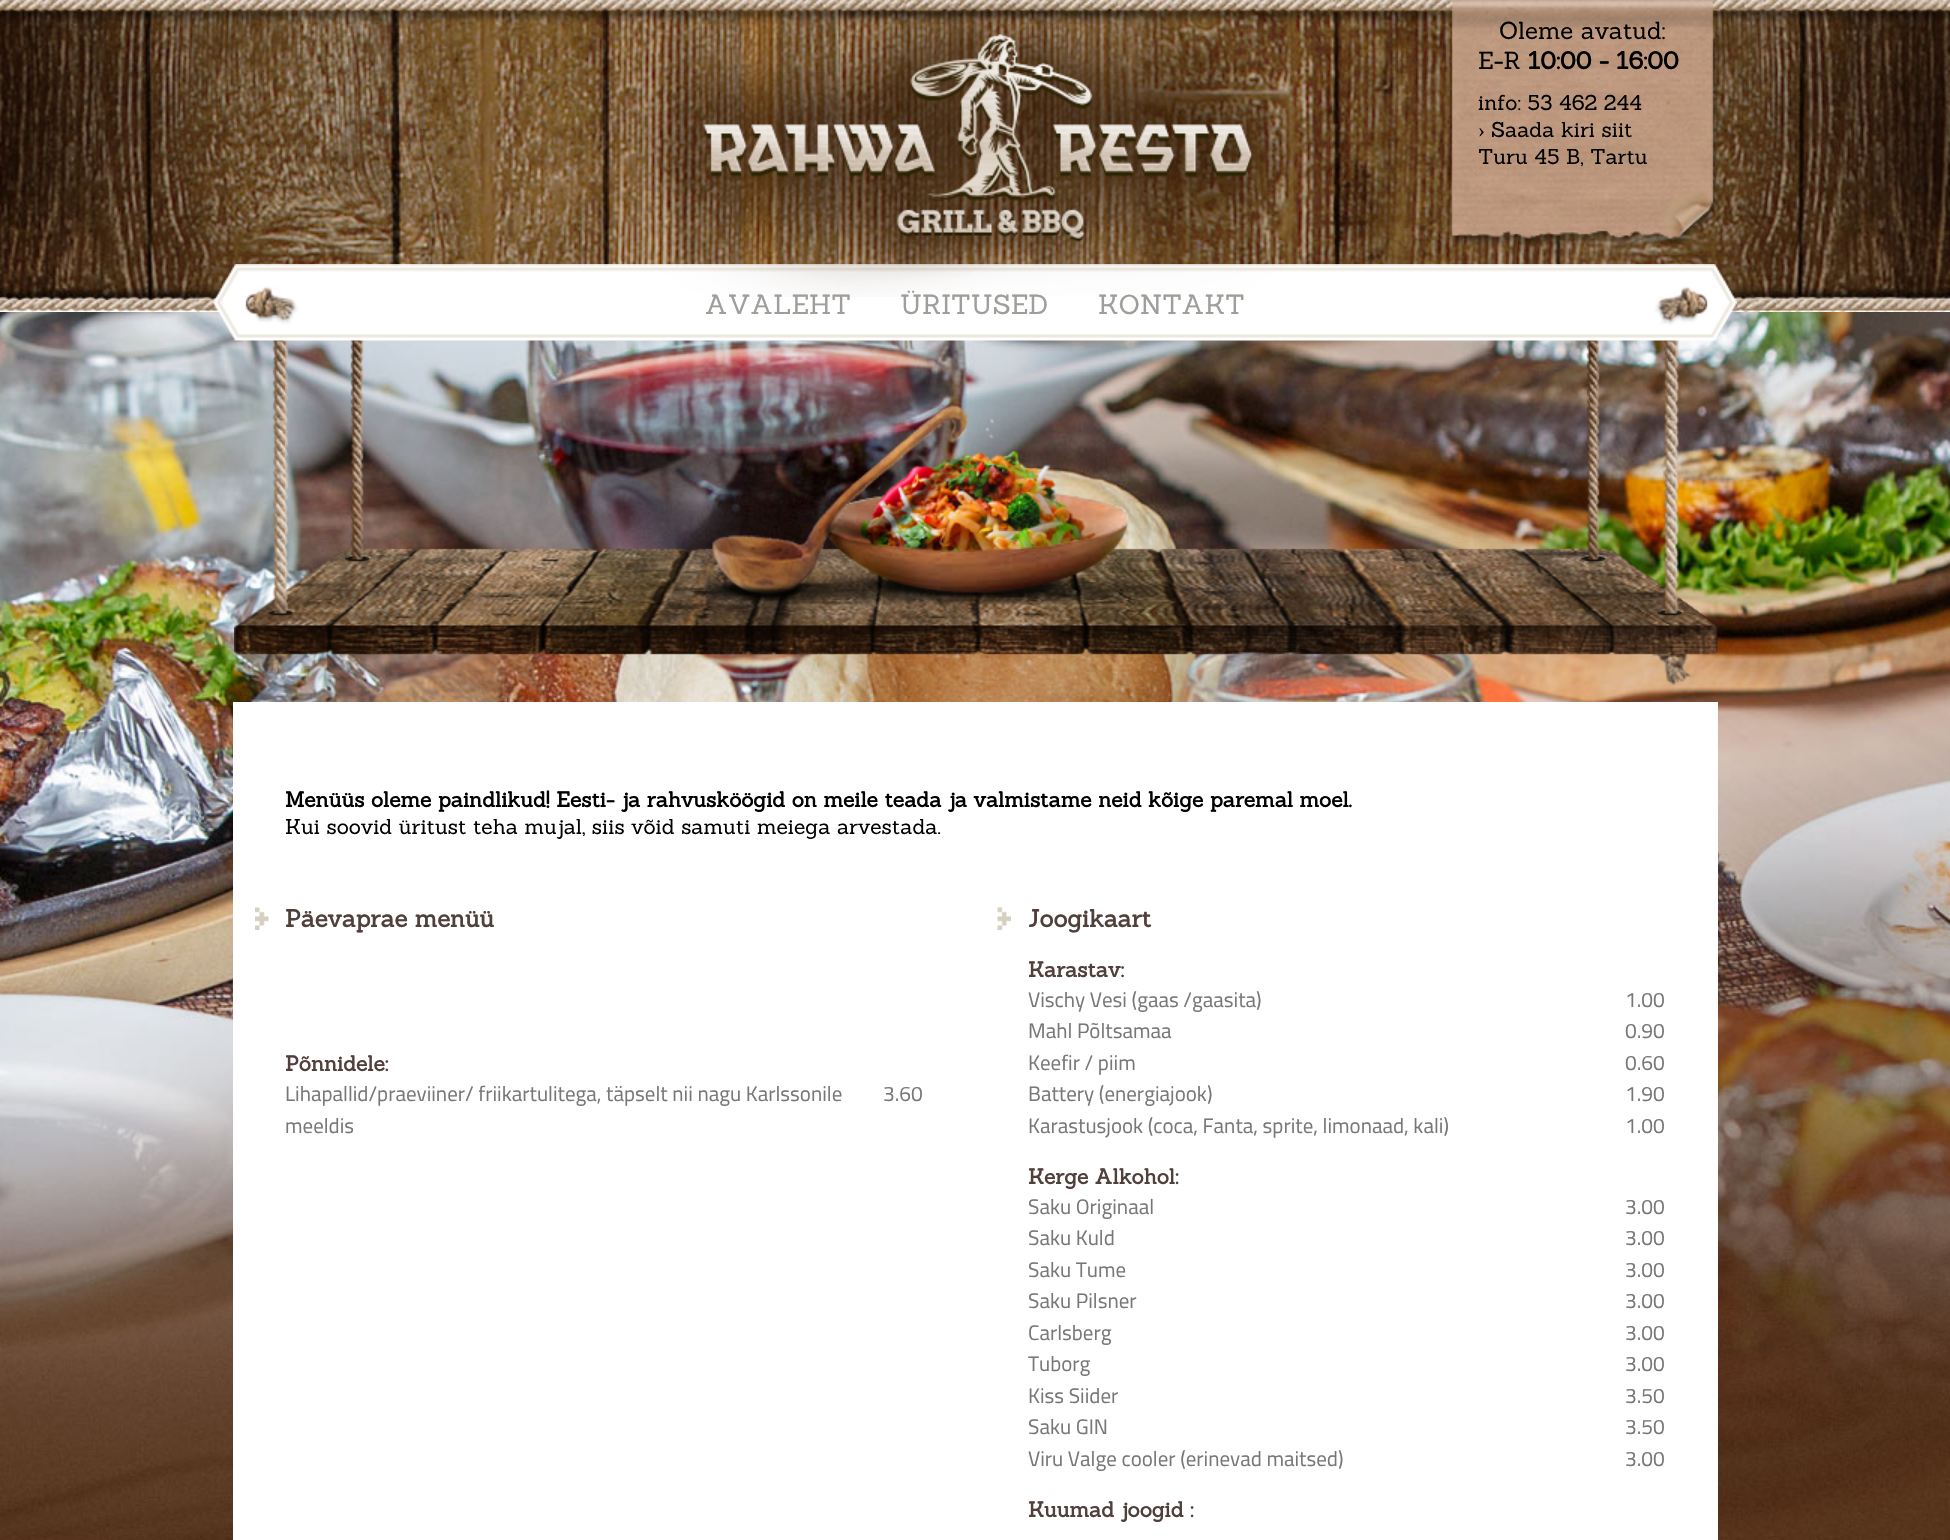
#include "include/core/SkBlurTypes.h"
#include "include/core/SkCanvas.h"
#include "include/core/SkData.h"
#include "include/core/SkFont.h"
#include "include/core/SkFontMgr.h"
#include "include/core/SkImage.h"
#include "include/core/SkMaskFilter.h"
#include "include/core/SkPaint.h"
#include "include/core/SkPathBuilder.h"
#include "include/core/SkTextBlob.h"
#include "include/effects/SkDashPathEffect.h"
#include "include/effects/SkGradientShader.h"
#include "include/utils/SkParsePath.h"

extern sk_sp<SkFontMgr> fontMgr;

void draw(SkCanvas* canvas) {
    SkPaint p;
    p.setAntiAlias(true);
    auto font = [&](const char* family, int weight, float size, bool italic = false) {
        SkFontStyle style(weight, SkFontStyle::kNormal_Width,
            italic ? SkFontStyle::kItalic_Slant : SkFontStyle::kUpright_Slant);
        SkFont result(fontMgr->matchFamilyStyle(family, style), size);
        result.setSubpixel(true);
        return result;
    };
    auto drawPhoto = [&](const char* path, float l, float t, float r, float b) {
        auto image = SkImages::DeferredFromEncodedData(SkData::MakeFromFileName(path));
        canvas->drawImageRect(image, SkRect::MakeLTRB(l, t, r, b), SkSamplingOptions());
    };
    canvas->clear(0xFFFFFFFF);
    drawPhoto("media/1.png", 0, 312, 1950, 1540);
    drawPhoto("media/2.png", 0, 0, 1950, 312);
    drawPhoto("media/6.png", 234, 340, 1718, 686);
    drawPhoto("media/5.png", 213, 264, 1737, 341);
    drawPhoto("media/3.png", 590, 3, 1305, 297);
    drawPhoto("media/4.png", 1447, 0, 1721, 248);
    auto font1 = font("Sanchez", 400, 24);
    p.setColor(0xFF000000);
    canvas->drawString("Oleme avatud:", 1499, 39, font1, p);
    canvas->drawString("E-R", 1478, 69, font1, p);
    auto font2 = font("Sanchez", 700, 24);
    canvas->drawString("10:00 - 16:00", 1528, 69, font2, p);
    auto font3 = font("Sanchez", 400, 21);
    canvas->drawString("info: 53 462 244", 1478, 110, font3, p);
    auto font4 = font("Liberation Serif", 400, 21);
    canvas->drawString("›", 1478, 137, font4, p);
    canvas->drawString("Saada kiri siit", 1491, 137, font3, p);
    canvas->drawString("Turu 45 B, Tartu", 1478, 164, font3, p);
    auto font5 = font("Sanchez", 400, 27);
    p.setColor(0xFFA09E9A);
    {
        const struct { const char* s; float x, y; } items[] = {
            {"AVALEHT", 705, 314},
            {"ÜRITUSED", 900, 314},
            {"KONTAKT", 1098, 314},
        };
        for (auto [s, x, y] : items) {
            canvas->drawString(s, x, y, font5, p);
        }
    }
    p.setColor(0xFFFFFFFF);
    canvas->drawRect(SkRect::MakeLTRB(233, 702, 1718, 1540), p);
    auto font6 = font("Sanchez", 700, 21);
    p.setColor(0xFF000000);
    canvas->drawString("Menüüs oleme paindlikud! Eesti- ja rahvusköögid on meile teada ja valmistame neid kõige paremal moel.", 285, 807, font6, p);
    canvas->drawString("Kui soovid üritust teha mujal, siis võid samuti meiega arvestada.", 285, 834, font3, p);
    drawPhoto("media/7.png", 255, 907, 269, 930);
    p.setColor(0xFF513F3C);
    canvas->drawString("Päevaprae menüü", 285, 927, font2, p);
    canvas->drawString("Põnnidele:", 285, 1071, font6, p);
    auto font7 = font("Titillium Web", 400, 21);
    p.setColor(0xFF777777);
    {
        const struct { const char* s; float x, y; } items[] = {
            {"Lihapallid/praeviiner/ friikartulitega, täpselt nii nagu Karlssonile", 285, 1101},
            {"meeldis", 285, 1133},
            {"3.60", 883, 1101},
        };
        for (auto [s, x, y] : items) {
            canvas->drawString(s, x, y, font7, p);
        }
    }
    drawPhoto("media/8.png", 997, 907, 1011, 930);
    p.setColor(0xFF513F3C);
    canvas->drawString("Joogikaart", 1028, 927, font2, p);
    canvas->drawString("Karastav:", 1028, 977, font6, p);
    p.setColor(0xFF777777);
    {
        const struct { const char* s; float x, y; } items[] = {
            {"Vischy Vesi (gaas /gaasita)", 1028, 1007},
            {"1.00", 1625, 1007},
            {"Mahl Põltsamaa", 1028, 1038},
            {"0.90", 1625, 1038},
            {"Keefir / piim", 1028, 1070},
            {"0.60", 1625, 1070},
            {"Battery (energiajook)", 1028, 1101},
            {"1.90", 1625, 1101},
            {"Karastusjook (coca, Fanta, sprite, limonaad, kali)", 1028, 1133},
            {"1.00", 1625, 1133},
        };
        for (auto [s, x, y] : items) {
            canvas->drawString(s, x, y, font7, p);
        }
    }
    p.setColor(0xFF513F3C);
    canvas->drawString("Kerge Alkohol:", 1028, 1184, font6, p);
    p.setColor(0xFF777777);
    {
        const struct { const char* s; float x, y; } items[] = {
            {"Saku Originaal", 1028, 1214},
            {"3.00", 1625, 1214},
            {"Saku Kuld", 1028, 1245},
            {"3.00", 1625, 1245},
            {"Saku Tume", 1028, 1277},
            {"3.00", 1625, 1277},
            {"Saku Pilsner", 1028, 1308},
            {"3.00", 1625, 1308},
            {"Carlsberg", 1028, 1340},
            {"3.00", 1625, 1340},
            {"Tuborg", 1028, 1371},
            {"3.00", 1625, 1371},
            {"Kiss Siider", 1028, 1403},
            {"3.50", 1625, 1403},
            {"Saku GIN", 1028, 1434},
            {"3.50", 1625, 1434},
            {"Viru Valge cooler (erinevad maitsed)", 1028, 1466},
            {"3.00", 1625, 1466},
        };
        for (auto [s, x, y] : items) {
            canvas->drawString(s, x, y, font7, p);
        }
    }
    p.setColor(0xFF513F3C);
    canvas->drawString("Kuumad joogid :", 1028, 1517, font6, p);
}
